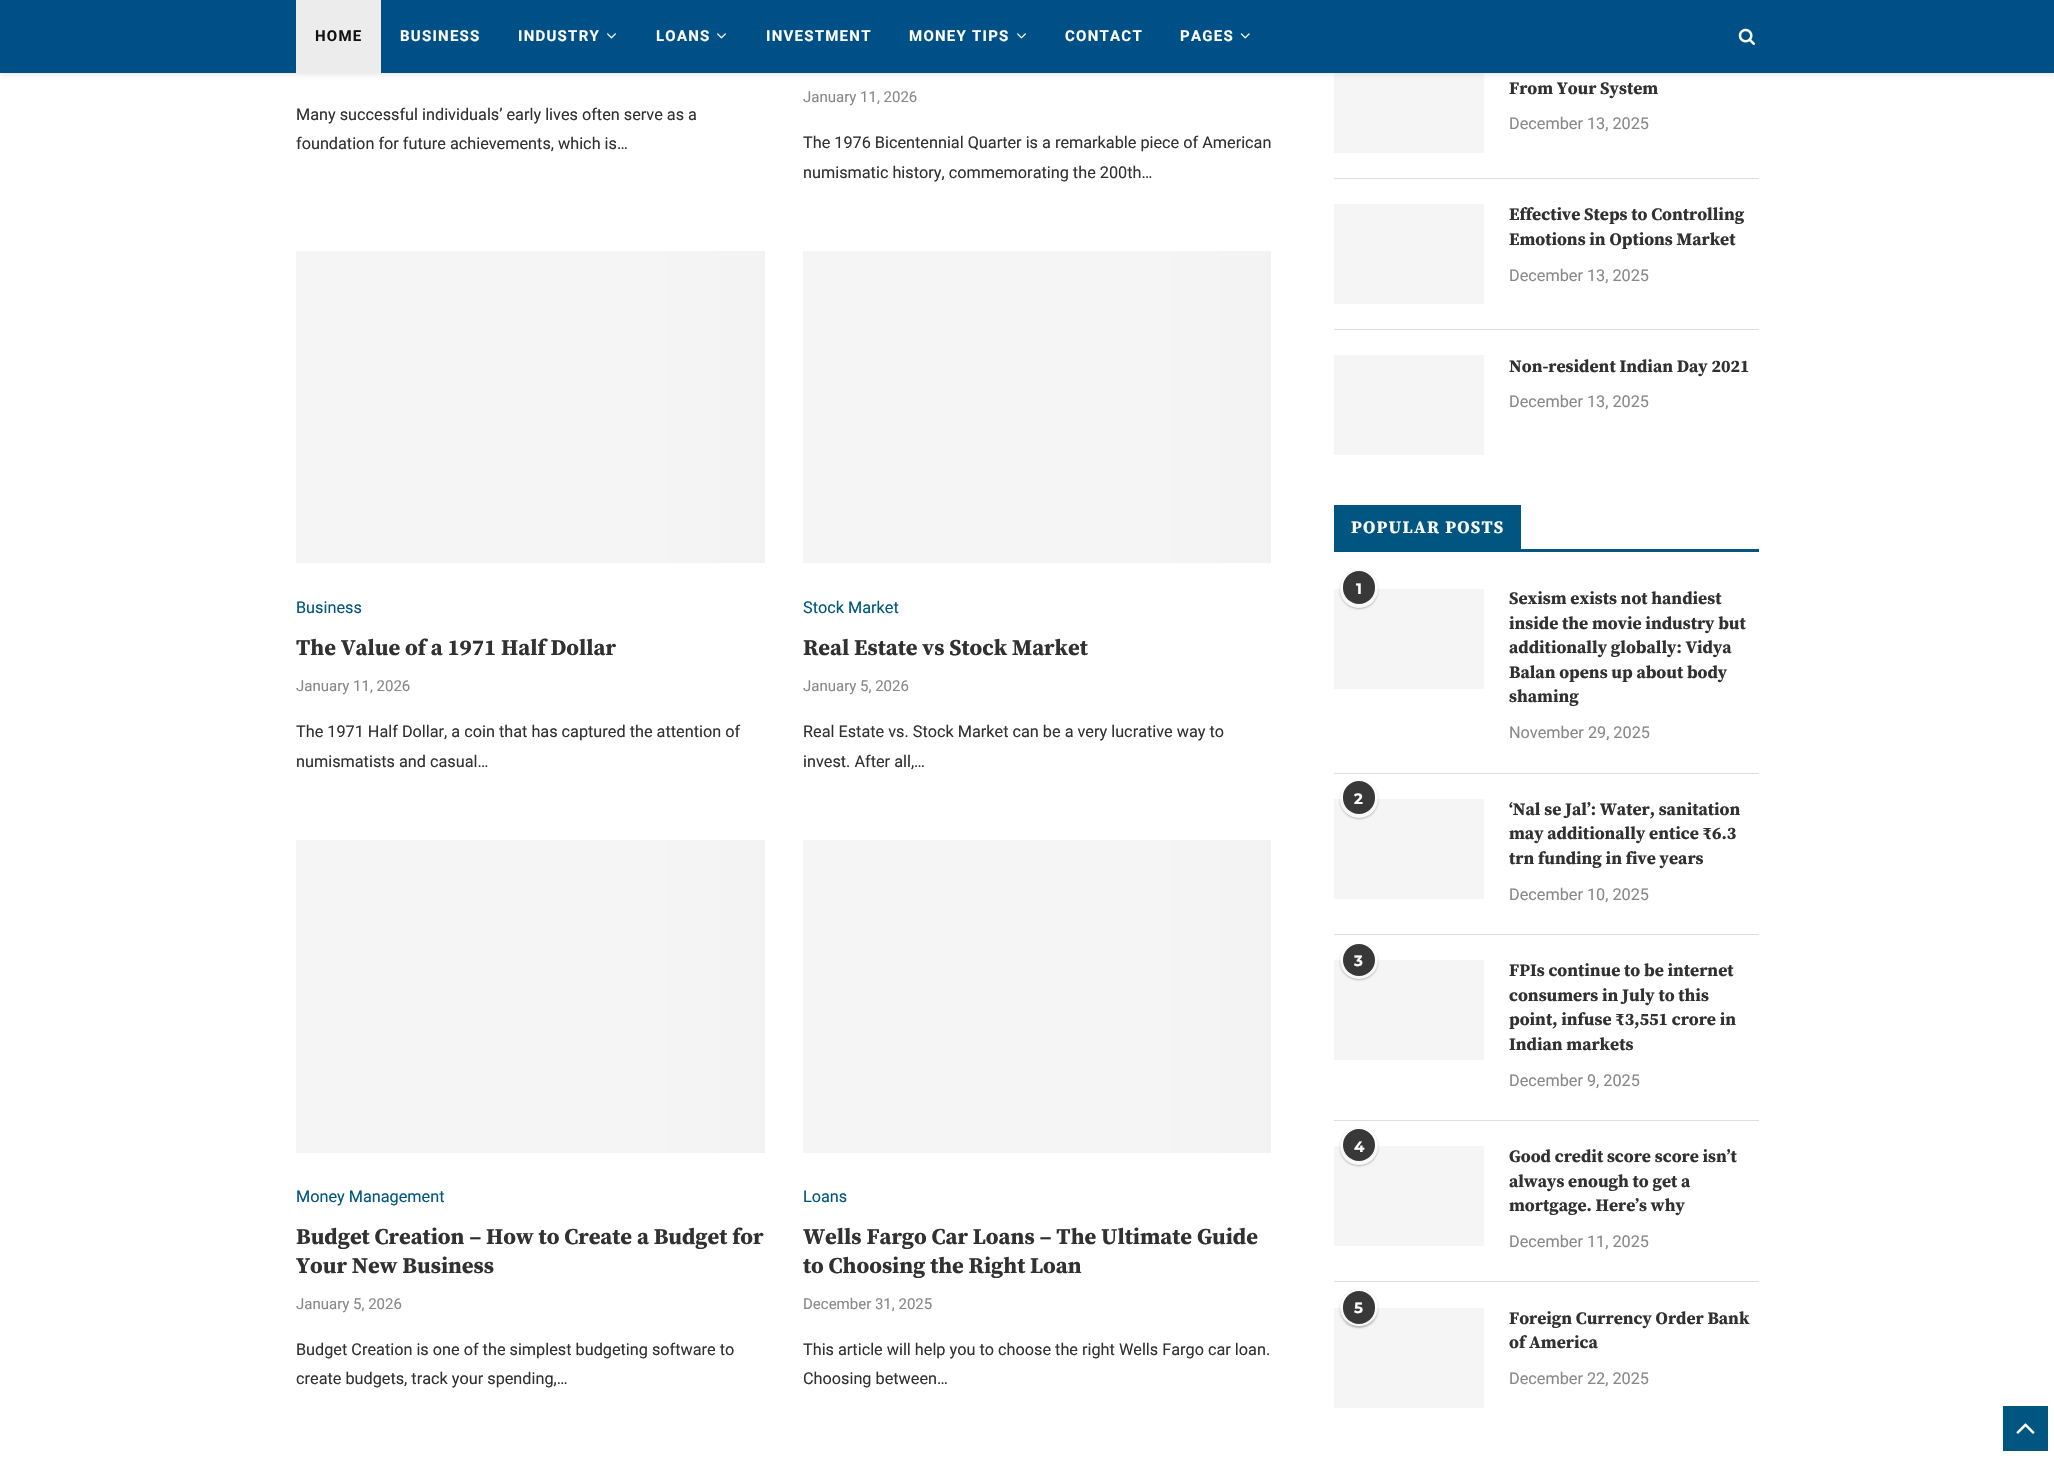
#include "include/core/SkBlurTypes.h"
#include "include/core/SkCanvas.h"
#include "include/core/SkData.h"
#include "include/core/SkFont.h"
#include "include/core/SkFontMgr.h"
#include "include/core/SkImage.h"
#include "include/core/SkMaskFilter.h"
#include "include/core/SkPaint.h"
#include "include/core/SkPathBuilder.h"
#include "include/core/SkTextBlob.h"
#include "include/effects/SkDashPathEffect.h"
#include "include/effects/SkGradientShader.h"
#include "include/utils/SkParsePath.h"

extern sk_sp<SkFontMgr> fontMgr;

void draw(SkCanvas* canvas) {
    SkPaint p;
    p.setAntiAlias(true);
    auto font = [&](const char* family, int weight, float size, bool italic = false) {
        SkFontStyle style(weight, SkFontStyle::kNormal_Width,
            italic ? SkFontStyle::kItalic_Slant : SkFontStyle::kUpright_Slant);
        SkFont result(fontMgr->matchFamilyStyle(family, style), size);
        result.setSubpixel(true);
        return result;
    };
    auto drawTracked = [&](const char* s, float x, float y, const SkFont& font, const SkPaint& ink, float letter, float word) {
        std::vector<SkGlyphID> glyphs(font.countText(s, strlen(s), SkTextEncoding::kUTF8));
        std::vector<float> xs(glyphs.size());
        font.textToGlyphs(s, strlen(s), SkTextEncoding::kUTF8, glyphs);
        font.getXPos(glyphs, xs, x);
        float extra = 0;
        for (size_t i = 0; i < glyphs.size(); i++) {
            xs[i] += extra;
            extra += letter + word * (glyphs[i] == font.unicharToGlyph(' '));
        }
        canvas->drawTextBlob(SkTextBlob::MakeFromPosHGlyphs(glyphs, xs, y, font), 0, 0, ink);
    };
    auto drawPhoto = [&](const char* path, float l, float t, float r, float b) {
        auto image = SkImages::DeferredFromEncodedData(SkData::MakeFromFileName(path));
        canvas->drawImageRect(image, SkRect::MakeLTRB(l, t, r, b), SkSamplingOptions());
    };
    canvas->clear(0xFFFFFFFF);
    p.setColor(0xFFF5F5F5);
    canvas->drawRect(SkRect::MakeLTRB(1334, 73, 1484, 153), p);
    p.setColor(0x75BEBEBE);
    p.setMaskFilter(SkMaskFilter::MakeBlur(kNormal_SkBlurStyle, 3));
    canvas->drawRect(SkRect::MakeLTRB(0, 1, 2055, 74), p);
    p.setMaskFilter(nullptr);
    p.setColor(0xFF005088);
    canvas->drawRect(SkRect::MakeLTRB(0, 0, 2054, 73), p);
    p.setColor(0xFFECECEC);
    canvas->drawRect(SkRect::MakeLTRB(296, 0, 381, 73), p);
    auto font1 = font("Roboto", 700, 15);
    p.setColor(0xFF111111);
    drawTracked("HOME", 315, 41, font1, p, 1.25f, 0);
    p.setColor(0xFFFFFFFF);
    drawTracked("BUSINESS", 400, 41, font1, p, 1.25f, 0);
    drawTracked("INDUSTRY", 518, 41, font1, p, 1.25f, 0);
    drawPhoto("media/1.png", 607, 33, 616, 39);
    drawTracked("LOANS", 656, 41, font1, p, 1.25f, 0);
    drawPhoto("media/1.png", 717, 33, 726, 39);
    drawTracked("INVESTMENT", 766, 41, font1, p, 1.25f, 0);
    drawTracked("MONEY TIPS", 909, 41, font1, p, 1.25f, 0);
    drawPhoto("media/1.png", 1017, 33, 1026, 39);
    drawTracked("CONTACT", 1065, 41, font1, p, 1.25f, 0);
    drawTracked("PAGES", 1180, 41, font1, p, 1.25f, 0);
    drawPhoto("media/2.png", 1240, 33, 1250, 39);
    drawPhoto("media/3.png", 1738, 28, 1755, 45);
    auto font2 = font("Roboto", 400, 16.25f);
    p.setColor(0xFF313131);
    canvas->drawString("Many successful individuals’ early lives often serve as a", 296, 120, font2, p);
    canvas->drawString("foundation for future achievements, which is…", 296, 149, font2, p);
    auto font3 = font("Roboto", 400, 15);
    p.setColor(0xFF888888);
    canvas->drawString("January 11, 2026", 803, 102, font3, p);
    p.setColor(0xFF313131);
    canvas->drawString("The 1976 Bicentennial Quarter is a remarkable piece of American", 803, 148, font2, p);
    canvas->drawString("numismatic history, commemorating the 200th…", 803, 178, font2, p);
    {
        const SkColor colors[] = {0xFFF5F5F5, 0xFFEFEFEF, 0xFFF5F5F5, 0xFFF5F5F5};
        const float stops[] = {0, 0.15f, 0.4f, 1};
        const SkPoint ends[] = {{1093, 407}, {-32, 407}};
        p.setShader(SkGradientShader::MakeLinear(ends, colors, stops, 4, SkTileMode::kClamp));
        p.setAlpha(255);
    }
    canvas->drawRect(SkRect::MakeLTRB(296, 251, 765, 563), p);
    p.setShader(nullptr);
    p.setColor(0xFF005680);
    canvas->drawString("Business", 296, 613, font2, p);
    auto font4 = font("Source Serif Pro", 700, 22.5f);
    p.setColor(0xFF313131);
    canvas->drawString("The Value of a 1971 Half Dollar", 296, 655, font4, p);
    p.setColor(0xFF888888);
    canvas->drawString("January 11, 2026", 296, 691, font3, p);
    p.setColor(0xFF313131);
    canvas->drawString("The 1971 Half Dollar, a coin that has captured the attention of", 296, 737, font2, p);
    canvas->drawString("numismatists and casual…", 296, 767, font2, p);
    {
        const SkColor colors[] = {0xFFF5F5F5, 0xFFEFEFEF, 0xFFF5F5F5, 0xFFF5F5F5};
        const float stops[] = {0, 0.15f, 0.4f, 1};
        const SkPoint ends[] = {{1599, 407}, {474, 407}};
        p.setShader(SkGradientShader::MakeLinear(ends, colors, stops, 4, SkTileMode::kClamp));
        p.setAlpha(255);
    }
    canvas->drawRect(SkRect::MakeLTRB(803, 251, 1271, 563), p);
    p.setShader(nullptr);
    p.setColor(0xFF005680);
    canvas->drawString("Stock Market", 803, 613, font2, p);
    p.setColor(0xFF313131);
    canvas->drawString("Real Estate vs Stock Market", 803, 655, font4, p);
    p.setColor(0xFF888888);
    canvas->drawString("January 5, 2026", 803, 691, font3, p);
    p.setColor(0xFF313131);
    canvas->drawString("Real Estate vs. Stock Market can be a very lucrative way to", 803, 737, font2, p);
    canvas->drawString("invest. After all,…", 803, 767, font2, p);
    {
        const SkColor colors[] = {0xFFF5F5F5, 0xFFEFEFEF, 0xFFF5F5F5, 0xFFF5F5F5};
        const float stops[] = {0, 0.15f, 0.4f, 1};
        const SkPoint ends[] = {{1093, 996}, {-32, 996}};
        p.setShader(SkGradientShader::MakeLinear(ends, colors, stops, 4, SkTileMode::kClamp));
        p.setAlpha(255);
    }
    canvas->drawRect(SkRect::MakeLTRB(296, 840, 765, 1153), p);
    p.setShader(nullptr);
    p.setColor(0xFF005680);
    canvas->drawString("Money Management", 296, 1202, font2, p);
    p.setColor(0xFF313131);
    canvas->drawString("Budget Creation – How to Create a Budget for", 296, 1244, font4, p);
    canvas->drawString("Your New Business", 296, 1273, font4, p);
    p.setColor(0xFF888888);
    canvas->drawString("January 5, 2026", 296, 1309, font3, p);
    p.setColor(0xFF313131);
    canvas->drawString("Budget Creation is one of the simplest budgeting software to", 296, 1355, font2, p);
    canvas->drawString("create budgets, track your spending,…", 296, 1384, font2, p);
    {
        const SkColor colors[] = {0xFFF5F5F5, 0xFFEFEFEF, 0xFFF5F5F5, 0xFFF5F5F5};
        const float stops[] = {0, 0.15f, 0.4f, 1};
        const SkPoint ends[] = {{1599, 996}, {474, 996}};
        p.setShader(SkGradientShader::MakeLinear(ends, colors, stops, 4, SkTileMode::kClamp));
        p.setAlpha(255);
    }
    canvas->drawRect(SkRect::MakeLTRB(803, 840, 1271, 1153), p);
    p.setShader(nullptr);
    p.setColor(0xFF005680);
    canvas->drawString("Loans", 803, 1202, font2, p);
    p.setColor(0xFF313131);
    canvas->drawString("Wells Fargo Car Loans – The Ultimate Guide", 803, 1244, font4, p);
    canvas->drawString("to Choosing the Right Loan", 803, 1273, font4, p);
    p.setColor(0xFF888888);
    canvas->drawString("December 31, 2025", 803, 1309, font3, p);
    p.setColor(0xFF313131);
    canvas->drawString("This article will help you to choose the right Wells Fargo car loan.", 803, 1355, font2, p);
    canvas->drawString("Choosing between…", 803, 1384, font2, p);
    p.setColor(0xFFDEDEDE);
    canvas->drawRect(SkRect::MakeLTRB(1334, 178, 1759, 179), p);
    auto font5 = font("Source Serif Pro", 700, 17.5f);
    p.setColor(0xFF313131);
    canvas->drawString("From Your System", 1509, 94, font5, p);
    p.setColor(0xFF888888);
    canvas->drawString("December 13, 2025", 1509, 129, font2, p);
    p.setColor(0xFFDEDEDE);
    canvas->drawRect(SkRect::MakeLTRB(1334, 329, 1759, 330), p);
    p.setColor(0xFFF5F5F5);
    canvas->drawRect(SkRect::MakeLTRB(1334, 204, 1484, 304), p);
    p.setColor(0xFF313131);
    canvas->drawString("Effective Steps to Controlling", 1509, 220, font5, p);
    canvas->drawString("Emotions in Options Market", 1509, 245, font5, p);
    p.setColor(0xFF888888);
    canvas->drawString("December 13, 2025", 1509, 281, font2, p);
    p.setColor(0xFFF5F5F5);
    canvas->drawRect(SkRect::MakeLTRB(1334, 355, 1484, 455), p);
    p.setColor(0xFF313131);
    canvas->drawString("Non-resident Indian Day 2021", 1509, 372, font5, p);
    p.setColor(0xFF888888);
    canvas->drawString("December 13, 2025", 1509, 407, font2, p);
    {
        const struct { float l, t, r, b; SkColor color; } items[] = {
            {1334, 549, 1759, 552, 0xFF005680},
            {1337, 506, 1520, 549, 0xFF005680},
            {1334, 505, 1521, 506, 0xFF005680},
            {1520, 505, 1521, 551, 0xFF005680},
            {1334, 505, 1337, 551, 0xFF005680},
        };
        for (auto [l, t, r, b, color] : items) {
            p.setColor(color);
            canvas->drawRect(SkRect::MakeLTRB(l, t, r, b), p);
        }
    }
    p.setColor(0xFFFFFFFF);
    drawTracked("POPULAR POSTS", 1351, 533, font5, p, 1.25f, 0);
    p.setColor(0xFFDEDEDE);
    canvas->drawRect(SkRect::MakeLTRB(1334, 773, 1759, 774), p);
    p.setColor(0xFFF5F5F5);
    canvas->drawRect(SkRect::MakeLTRB(1334, 589, 1484, 689), p);
    canvas->save();
    canvas->clipPath(SkPathBuilder(SkPathFillType::kEvenOdd).moveTo(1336, 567).lineTo(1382, 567).lineTo(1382, 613).lineTo(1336, 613).close().moveTo(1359, 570).cubicTo(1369.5f, 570, 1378, 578.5f, 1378, 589).cubicTo(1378, 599.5f, 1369.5f, 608, 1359, 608).cubicTo(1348.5f, 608, 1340, 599.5f, 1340, 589).cubicTo(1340, 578.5f, 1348.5f, 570, 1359, 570).close().detach(), true);
    p.setColor(0x40000000);
    p.setMaskFilter(SkMaskFilter::MakeBlur(kNormal_SkBlurStyle, 1));
    canvas->drawRoundRect(SkRect::MakeLTRB(1340, 571, 1378, 609), 19, 19, p);
    p.setMaskFilter(nullptr);
    canvas->restore();
    p.setColor(0x4DFFFFFF);
    canvas->drawCircle(1359, 589, 19, p);
    p.setColor(0xFF383838);
    canvas->drawRoundRect(SkRect::MakeLTRB(1343, 571, 1375, 604), 16, 16, p);
    auto font6 = font("Montserrat", 700, 15);
    p.setColor(0xFFFFFFFF);
    canvas->drawString("1", 1356, 594, font6, p);
    p.setColor(0xFF313131);
    {
        const struct { const char* s; float x, y; } items[] = {
            {"Sexism exists not handiest", 1509, 604},
            {"inside the movie industry but", 1509, 629},
            {"additionally globally: Vidya", 1509, 653},
            {"Balan opens up about body", 1509, 678},
            {"shaming", 1509, 702},
        };
        for (auto [s, x, y] : items) {
            canvas->drawString(s, x, y, font5, p);
        }
    }
    p.setColor(0xFF888888);
    canvas->drawString("November 29, 2025", 1509, 738, font2, p);
    p.setColor(0xFFDEDEDE);
    canvas->drawRect(SkRect::MakeLTRB(1334, 934, 1759, 935), p);
    p.setColor(0xFFF5F5F5);
    canvas->drawRect(SkRect::MakeLTRB(1334, 799, 1484, 899), p);
    canvas->save();
    canvas->clipPath(SkPathBuilder(SkPathFillType::kEvenOdd).moveTo(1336, 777).lineTo(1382, 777).lineTo(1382, 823).lineTo(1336, 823).close().moveTo(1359, 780).cubicTo(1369.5f, 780, 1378, 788.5f, 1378, 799).cubicTo(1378, 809.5f, 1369.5f, 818, 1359, 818).cubicTo(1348.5f, 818, 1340, 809.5f, 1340, 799).cubicTo(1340, 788.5f, 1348.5f, 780, 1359, 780).close().detach(), true);
    p.setColor(0x40000000);
    p.setMaskFilter(SkMaskFilter::MakeBlur(kNormal_SkBlurStyle, 1));
    canvas->drawRoundRect(SkRect::MakeLTRB(1340, 781, 1378, 819), 19, 19, p);
    p.setMaskFilter(nullptr);
    canvas->restore();
    p.setColor(0x4DFFFFFF);
    canvas->drawCircle(1359, 799, 19, p);
    p.setColor(0xFF383838);
    canvas->drawRoundRect(SkRect::MakeLTRB(1343, 781, 1375, 814), 16, 16, p);
    p.setColor(0xFFFFFFFF);
    canvas->drawString("2", 1354, 804, font6, p);
    p.setColor(0xFF313131);
    {
        const struct { const char* s; float x, y; } items[] = {
            {"‘Nal se Jal’: Water, sanitation", 1509, 815},
            {"may additionally entice ₹6.3", 1509, 839},
            {"trn funding in five years", 1509, 864},
        };
        for (auto [s, x, y] : items) {
            canvas->drawString(s, x, y, font5, p);
        }
    }
    p.setColor(0xFF888888);
    canvas->drawString("December 10, 2025", 1509, 900, font2, p);
    p.setColor(0xFFDEDEDE);
    canvas->drawRect(SkRect::MakeLTRB(1334, 1120, 1759, 1121), p);
    p.setColor(0xFFF5F5F5);
    canvas->drawRect(SkRect::MakeLTRB(1334, 960, 1484, 1060), p);
    canvas->save();
    canvas->clipPath(SkPathBuilder(SkPathFillType::kEvenOdd).moveTo(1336, 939).lineTo(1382, 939).lineTo(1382, 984).lineTo(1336, 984).close().moveTo(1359, 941).cubicTo(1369.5f, 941, 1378, 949.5f, 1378, 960).cubicTo(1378, 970.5f, 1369.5f, 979, 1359, 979).cubicTo(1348.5f, 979, 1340, 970.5f, 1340, 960).cubicTo(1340, 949.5f, 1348.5f, 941, 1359, 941).close().detach(), true);
    p.setColor(0x40000000);
    p.setMaskFilter(SkMaskFilter::MakeBlur(kNormal_SkBlurStyle, 1));
    canvas->drawRoundRect(SkRect::MakeLTRB(1340, 943, 1378, 980), 18.5f, 18.5f, p);
    p.setMaskFilter(nullptr);
    canvas->restore();
    p.setColor(0x4DFFFFFF);
    canvas->drawCircle(1359, 960, 19, p);
    p.setColor(0xFF383838);
    canvas->drawCircle(1359, 960, 16, p);
    p.setColor(0xFFFFFFFF);
    canvas->drawString("3", 1354, 966, font6, p);
    p.setColor(0xFF313131);
    {
        const struct { const char* s; float x, y; } items[] = {
            {"FPIs continue to be internet", 1509, 976},
            {"consumers in July to this", 1509, 1001},
            {"point, infuse ₹3,551 crore in", 1509, 1025},
            {"Indian markets", 1509, 1050},
        };
        for (auto [s, x, y] : items) {
            canvas->drawString(s, x, y, font5, p);
        }
    }
    p.setColor(0xFF888888);
    canvas->drawString("December 9, 2025", 1509, 1086, font2, p);
    p.setColor(0xFFDEDEDE);
    canvas->drawRect(SkRect::MakeLTRB(1334, 1281, 1759, 1282), p);
    p.setColor(0xFFF5F5F5);
    canvas->drawRect(SkRect::MakeLTRB(1334, 1146, 1484, 1246), p);
    canvas->save();
    canvas->clipPath(SkPathBuilder(SkPathFillType::kEvenOdd).moveTo(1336, 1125).lineTo(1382, 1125).lineTo(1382, 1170).lineTo(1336, 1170).close().moveTo(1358.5f, 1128).lineTo(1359.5f, 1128).cubicTo(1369.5f, 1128, 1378, 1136.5f, 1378, 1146.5f).cubicTo(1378, 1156.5f, 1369.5f, 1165, 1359.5f, 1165).lineTo(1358.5f, 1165).cubicTo(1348.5f, 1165, 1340, 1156.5f, 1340, 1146.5f).cubicTo(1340, 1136.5f, 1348.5f, 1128, 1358.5f, 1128).close().detach(), true);
    p.setColor(0x40000000);
    p.setMaskFilter(SkMaskFilter::MakeBlur(kNormal_SkBlurStyle, 1));
    canvas->drawRoundRect(SkRect::MakeLTRB(1340, 1129, 1378, 1166), 18.5f, 18.5f, p);
    p.setMaskFilter(nullptr);
    canvas->restore();
    p.setColor(0x4DFFFFFF);
    canvas->drawRoundRect(SkRect::MakeLTRB(1340, 1128, 1378, 1165), 18.5f, 18.5f, p);
    p.setColor(0xFF383838);
    canvas->drawCircle(1359, 1145, 16, p);
    p.setColor(0xFFFFFFFF);
    canvas->drawString("4", 1354, 1152, font6, p);
    p.setColor(0xFF313131);
    {
        const struct { const char* s; float x, y; } items[] = {
            {"Good credit score score isn’t", 1509, 1162},
            {"always enough to get a", 1509, 1187},
            {"mortgage. Here’s why", 1509, 1211},
        };
        for (auto [s, x, y] : items) {
            canvas->drawString(s, x, y, font5, p);
        }
    }
    p.setColor(0xFF888888);
    canvas->drawString("December 11, 2025", 1509, 1247, font2, p);
    p.setColor(0xFFF5F5F5);
    canvas->drawRect(SkRect::MakeLTRB(1334, 1308, 1484, 1408), p);
    canvas->save();
    canvas->clipPath(SkPathBuilder(SkPathFillType::kEvenOdd).moveTo(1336, 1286).lineTo(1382, 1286).lineTo(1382, 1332).lineTo(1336, 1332).close().moveTo(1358.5f, 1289).lineTo(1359.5f, 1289).cubicTo(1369.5f, 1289, 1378, 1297.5f, 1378, 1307.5f).cubicTo(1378, 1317.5f, 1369.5f, 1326, 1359.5f, 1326).lineTo(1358.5f, 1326).cubicTo(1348.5f, 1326, 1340, 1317.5f, 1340, 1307.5f).cubicTo(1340, 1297.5f, 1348.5f, 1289, 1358.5f, 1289).close().detach(), true);
    p.setColor(0x40000000);
    p.setMaskFilter(SkMaskFilter::MakeBlur(kNormal_SkBlurStyle, 1));
    canvas->drawRoundRect(SkRect::MakeLTRB(1340, 1290, 1378, 1328), 19, 19, p);
    p.setMaskFilter(nullptr);
    canvas->restore();
    p.setColor(0x4DFFFFFF);
    canvas->drawRoundRect(SkRect::MakeLTRB(1340, 1289, 1378, 1326), 18.5f, 18.5f, p);
    p.setColor(0xFF383838);
    canvas->drawRoundRect(SkRect::MakeLTRB(1343, 1291, 1375, 1324), 16, 16, p);
    p.setColor(0xFFFFFFFF);
    canvas->drawString("5", 1354, 1313, font6, p);
    p.setColor(0xFF313131);
    canvas->drawString("Foreign Currency Order Bank", 1509, 1324, font5, p);
    canvas->drawString("of America", 1509, 1348, font5, p);
    p.setColor(0xFF888888);
    canvas->drawString("December 22, 2025", 1509, 1384, font2, p);
    p.setColor(0xFF005680);
    canvas->drawRect(SkRect::MakeLTRB(2003, 1406, 2048, 1451), p);
    drawPhoto("media/4.png", 2016, 1423, 2035, 1434);
}
